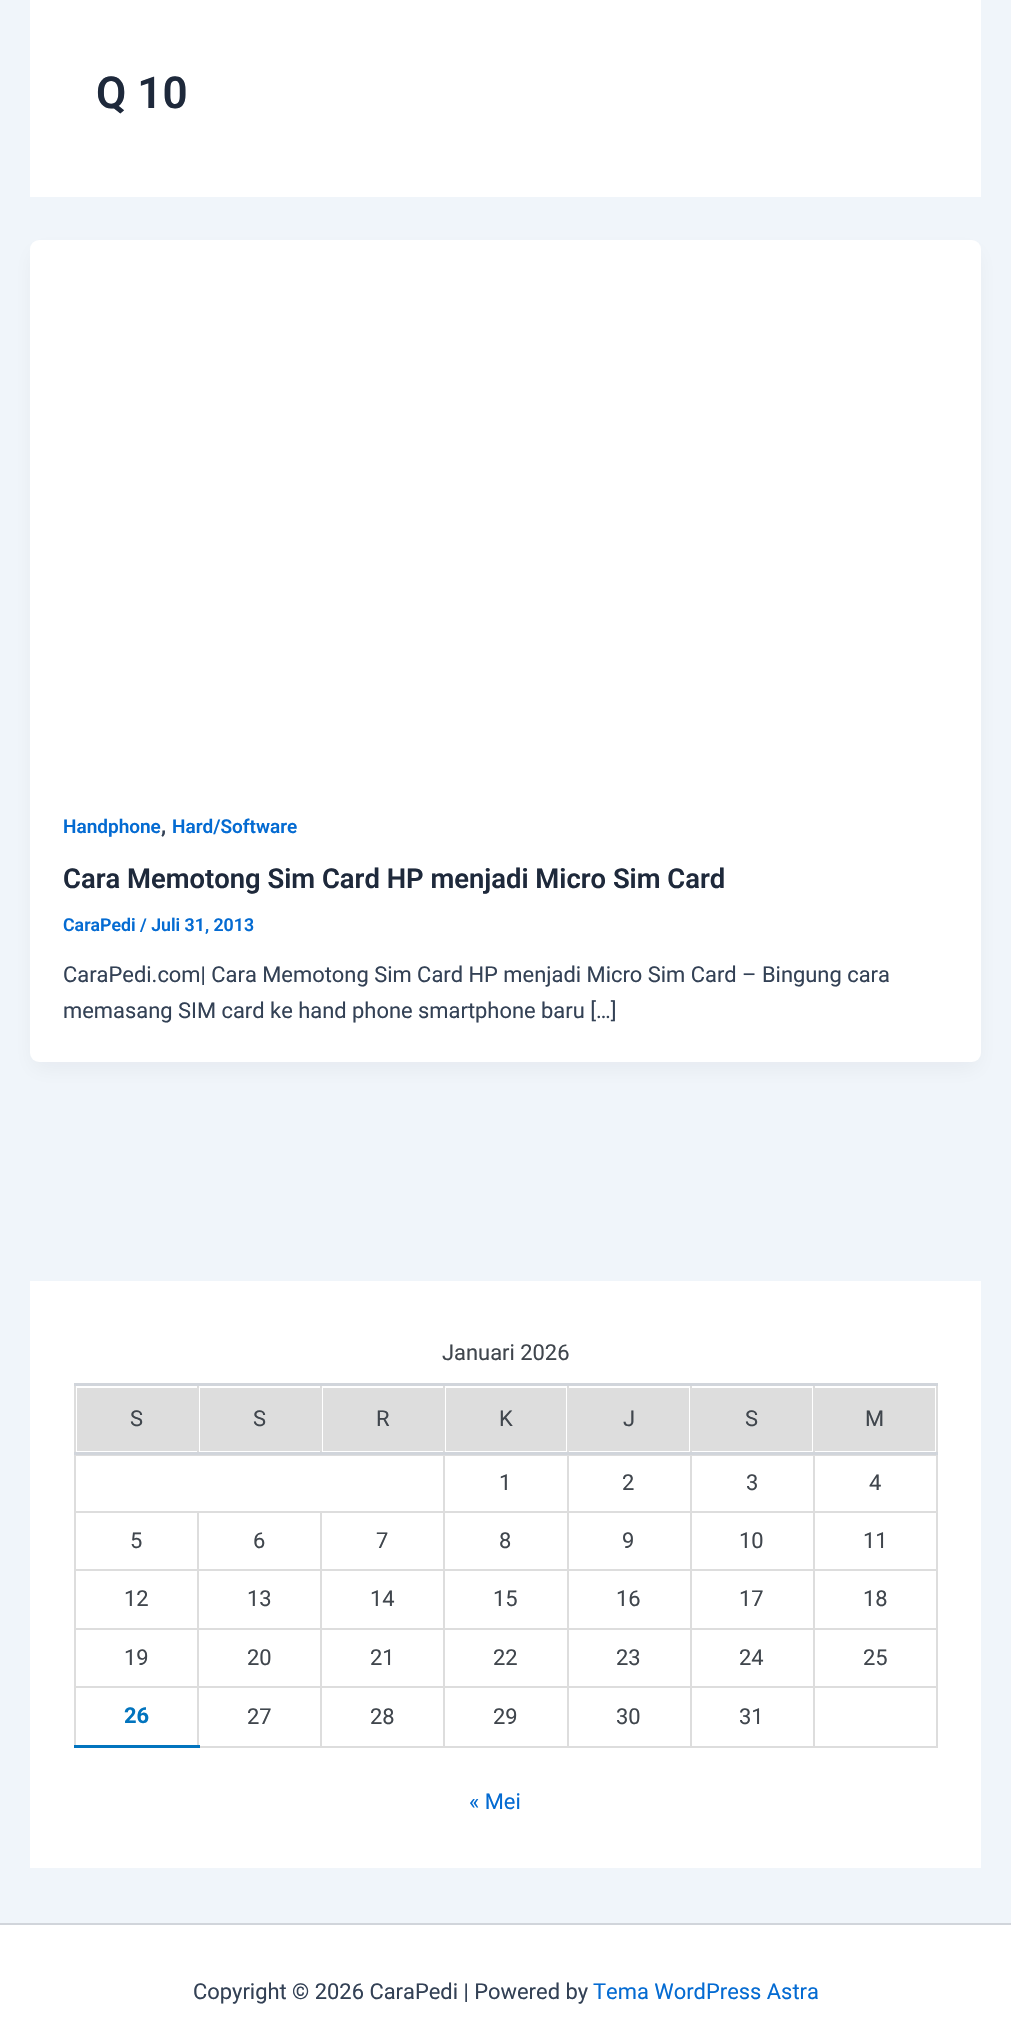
#include "include/core/SkBlurTypes.h"
#include "include/core/SkCanvas.h"
#include "include/core/SkData.h"
#include "include/core/SkFont.h"
#include "include/core/SkFontMgr.h"
#include "include/core/SkImage.h"
#include "include/core/SkMaskFilter.h"
#include "include/core/SkPaint.h"
#include "include/core/SkPathBuilder.h"
#include "include/core/SkTextBlob.h"
#include "include/effects/SkDashPathEffect.h"
#include "include/effects/SkGradientShader.h"
#include "include/utils/SkParsePath.h"

extern sk_sp<SkFontMgr> fontMgr;

void draw(SkCanvas* canvas) {
    SkPaint p;
    p.setAntiAlias(true);
    auto font = [&](const char* family, int weight, float size, bool italic = false) {
        SkFontStyle style(weight, SkFontStyle::kNormal_Width,
            italic ? SkFontStyle::kItalic_Slant : SkFontStyle::kUpright_Slant);
        SkFont result(fontMgr->matchFamilyStyle(family, style), size);
        result.setSubpixel(true);
        return result;
    };
    canvas->clear(0xFFF0F5FA);
    p.setColor(0xFFFFFFFF);
    canvas->drawRect(SkRect::MakeLTRB(30, 0, 981, 197), p);
    auto font1 = font("Roboto", 600, 44);
    p.setColor(0xFF1E293B);
    canvas->drawString("Q 10", 96, 108, font1, p);
    p.setColor(0x0D101828);
    p.setMaskFilter(SkMaskFilter::MakeBlur(kNormal_SkBlurStyle, 11));
    canvas->drawRoundRect(SkRect::MakeLTRB(33, 252, 978, 1068), 6, 6, p);
    p.setMaskFilter(nullptr);
    p.setColor(0xFFFFFFFF);
    canvas->drawRoundRect(SkRect::MakeLTRB(30, 240, 981, 1062), 9, 9, p);
    auto font2 = font("Roboto", 600, 19);
    p.setColor(0xFF046BD2);
    canvas->drawString("Handphone", 63, 833, font2, p);
    auto font3 = font("Roboto", 600, 21.9f);
    p.setColor(0xFF334155);
    canvas->drawString(",", 161, 833, font3, p);
    p.setColor(0xFF046BD2);
    canvas->drawString("Hard/Software", 172, 833, font2, p);
    auto font4 = font("Roboto", 600, 27.4f);
    p.setColor(0xFF1E293B);
    canvas->drawString("Cara Memotong Sim Card HP menjadi Micro Sim Card", 63, 888, font4, p);
    auto font5 = font("Roboto", 600, 17.75f);
    p.setColor(0xFF046BD2);
    canvas->drawString("CaraPedi / Juli 31, 2013", 63, 931, font5, p);
    auto font6 = font("Roboto", 400, 21.9f);
    p.setColor(0xFF334155);
    canvas->drawString("CaraPedi.com| Cara Memotong Sim Card HP menjadi Micro Sim Card – Bingung cara", 63, 982, font6, p);
    canvas->drawString("memasang SIM card ke hand phone smartphone baru […]", 63, 1018, font6, p);
    p.setColor(0xFFFFFFFF);
    canvas->drawRect(SkRect::MakeLTRB(30, 1281, 981, 1868), p);
    p.setColor(0xFF40464D);
    canvas->drawString("Januari 2026", 442, 1360, font6, p);
    p.setColor(0xFFDDDDDD);
    canvas->drawRect(SkRect::MakeLTRB(77, 1388, 197, 1451), p);
    p.setColor(0xFF40464D);
    canvas->drawString("S", 130, 1426, font6, p);
    p.setColor(0xFFDDDDDD);
    canvas->drawRect(SkRect::MakeLTRB(200, 1388, 320, 1451), p);
    canvas->drawRect(SkRect::MakeLTRB(197, 1385, 199, 1455), p);
    p.setColor(0xFF40464D);
    canvas->drawString("S", 253, 1426, font6, p);
    p.setColor(0xFFDDDDDD);
    canvas->drawRect(SkRect::MakeLTRB(323, 1388, 443, 1451), p);
    canvas->drawRect(SkRect::MakeLTRB(320, 1385, 322, 1455), p);
    p.setColor(0xFF40464D);
    canvas->drawString("R", 376, 1426, font6, p);
    p.setColor(0xFFDDDDDD);
    canvas->drawRect(SkRect::MakeLTRB(446, 1388, 566, 1451), p);
    p.setColor(0xFF40464D);
    canvas->drawString("K", 499, 1426, font6, p);
    p.setColor(0xFFDDDDDD);
    canvas->drawRect(SkRect::MakeLTRB(569, 1388, 689, 1451), p);
    p.setColor(0xFF40464D);
    canvas->drawString("J", 623, 1426, font6, p);
    p.setColor(0xFFDDDDDD);
    canvas->drawRect(SkRect::MakeLTRB(692, 1388, 812, 1451), p);
    p.setColor(0xFF40464D);
    canvas->drawString("S", 745, 1426, font6, p);
    {
        const struct { float l, t, r, b; SkColor color; } items[] = {
            {815, 1388, 935, 1451, 0xFFDDDDDD},
            {813, 1455, 938, 1456, 0xFFDDDDDD},
            {813, 1511, 938, 1513, 0xFFDDDDDD},
            {813, 1569, 938, 1571, 0xFFDDDDDD},
            {813, 1628, 938, 1630, 0xFFDDDDDD},
            {813, 1686, 938, 1688, 0xFFDDDDDD},
            {936, 1686, 938, 1748, 0xFFDDDDDD},
            {813, 1746, 938, 1748, 0xFFDDDDDD},
            {813, 1686, 815, 1748, 0xFFDDDDDD},
            {690, 1686, 815, 1688, 0xFFDDDDDD},
            {813, 1628, 815, 1688, 0xFFDDDDDD},
            {690, 1628, 815, 1630, 0xFFDDDDDD},
            {813, 1569, 815, 1629, 0xFFDDDDDD},
            {690, 1569, 815, 1571, 0xFFDDDDDD},
            {813, 1511, 815, 1571, 0xFFDDDDDD},
            {690, 1511, 815, 1513, 0xFFDDDDDD},
            {813, 1385, 815, 1512, 0xFFDDDDDD},
            {690, 1455, 815, 1456, 0xFFDDDDDD},
            {690, 1746, 815, 1748, 0xFFDDDDDD},
            {690, 1686, 692, 1748, 0xFFDDDDDD},
            {567, 1686, 692, 1688, 0xFFDDDDDD},
            {690, 1628, 692, 1688, 0xFFDDDDDD},
            {567, 1628, 692, 1630, 0xFFDDDDDD},
            {690, 1569, 692, 1629, 0xFFDDDDDD},
            {567, 1569, 692, 1571, 0xFFDDDDDD},
            {690, 1511, 692, 1571, 0xFFDDDDDD},
            {567, 1511, 692, 1513, 0xFFDDDDDD},
            {690, 1385, 692, 1512, 0xFFDDDDDD},
            {567, 1455, 692, 1456, 0xFFDDDDDD},
            {567, 1746, 692, 1748, 0xFFDDDDDD},
            {567, 1686, 569, 1748, 0xFFDDDDDD},
            {443, 1686, 569, 1688, 0xFFDDDDDD},
            {567, 1628, 569, 1688, 0xFFDDDDDD},
            {443, 1628, 569, 1630, 0xFFDDDDDD},
            {567, 1569, 569, 1629, 0xFFDDDDDD},
            {443, 1569, 569, 1571, 0xFFDDDDDD},
            {567, 1511, 569, 1571, 0xFFDDDDDD},
            {443, 1511, 569, 1513, 0xFFDDDDDD},
            {567, 1385, 569, 1512, 0xFFDDDDDD},
            {443, 1455, 569, 1456, 0xFFDDDDDD},
            {443, 1746, 569, 1748, 0xFFDDDDDD},
            {443, 1686, 445, 1748, 0xFFDDDDDD},
            {320, 1686, 444, 1688, 0xFFDDDDDD},
            {443, 1628, 445, 1688, 0xFFDDDDDD},
            {320, 1628, 444, 1630, 0xFFDDDDDD},
            {443, 1569, 445, 1629, 0xFFDDDDDD},
            {320, 1569, 444, 1571, 0xFFDDDDDD},
            {443, 1511, 445, 1571, 0xFFDDDDDD},
            {320, 1511, 444, 1513, 0xFFDDDDDD},
            {443, 1385, 445, 1512, 0xFFDDDDDD},
            {74, 1455, 444, 1456, 0xFFDDDDDD},
            {320, 1746, 444, 1748, 0xFFDDDDDD},
            {320, 1686, 322, 1748, 0xFFDDDDDD},
            {197, 1686, 321, 1688, 0xFFDDDDDD},
            {320, 1628, 322, 1688, 0xFFDDDDDD},
            {197, 1628, 321, 1630, 0xFFDDDDDD},
            {320, 1569, 322, 1629, 0xFFDDDDDD},
            {197, 1569, 321, 1571, 0xFFDDDDDD},
            {320, 1511, 322, 1571, 0xFFDDDDDD},
            {197, 1511, 321, 1513, 0xFFDDDDDD},
            {197, 1746, 321, 1748, 0xFFDDDDDD},
            {197, 1686, 199, 1748, 0xFFDDDDDD},
            {74, 1686, 198, 1688, 0xFFDDDDDD},
            {197, 1628, 199, 1688, 0xFFDDDDDD},
            {74, 1628, 198, 1630, 0xFFDDDDDD},
            {197, 1569, 199, 1629, 0xFFDDDDDD},
            {74, 1569, 198, 1571, 0xFFDDDDDD},
            {197, 1511, 199, 1571, 0xFFDDDDDD},
            {74, 1511, 198, 1513, 0xFFDDDDDD},
            {74, 1686, 76, 1748, 0xFFDDDDDD},
            {74, 1628, 76, 1688, 0xFFDDDDDD},
            {74, 1569, 76, 1629, 0xFFDDDDDD},
            {74, 1511, 76, 1571, 0xFFDDDDDD},
            {74, 1385, 76, 1512, 0xFFDDDDDD},
            {936, 1628, 938, 1688, 0xFFDDDDDD},
            {936, 1569, 938, 1629, 0xFFDDDDDD},
            {936, 1511, 938, 1571, 0xFFDDDDDD},
            {936, 1385, 938, 1512, 0xFFDDDDDD},
            {74, 1383, 938, 1386, 0xFFD1D5DB},
            {74, 1452, 938, 1455, 0xFFD1D5DB},
        };
        for (auto [l, t, r, b, color] : items) {
            p.setColor(color);
            canvas->drawRect(SkRect::MakeLTRB(l, t, r, b), p);
        }
    }
    p.setColor(0xFF40464D);
    {
        const struct { const char* s; float x, y; } items[] = {
            {"M", 865, 1426},
            {"1", 499, 1490},
            {"2", 622, 1490},
            {"3", 746, 1490},
            {"4", 869, 1490},
            {"5", 130, 1548},
            {"6", 253, 1548},
            {"7", 376, 1548},
            {"8", 499, 1548},
            {"9", 622, 1548},
            {"10", 739, 1548},
            {"11", 863, 1548},
            {"12", 124, 1606},
            {"13", 247, 1606},
            {"14", 370, 1606},
            {"15", 493, 1606},
            {"16", 616, 1606},
            {"17", 739, 1606},
            {"18", 863, 1606},
            {"19", 124, 1665},
            {"20", 247, 1665},
            {"21", 370, 1665},
            {"22", 493, 1665},
            {"23", 616, 1665},
            {"24", 739, 1665},
            {"25", 863, 1665},
        };
        for (auto [s, x, y] : items) {
            canvas->drawString(s, x, y, font6, p);
        }
    }
    p.setColor(0xFF0274BE);
    canvas->drawRect(SkRect::MakeLTRB(74, 1745, 200, 1748), p);
    auto font7 = font("Roboto", 700, 21.9f);
    canvas->drawString("26", 124, 1723, font7, p);
    p.setColor(0xFF40464D);
    {
        const struct { const char* s; float x, y; } items[] = {
            {"27", 247, 1724},
            {"28", 370, 1724},
            {"29", 493, 1724},
            {"30", 616, 1724},
            {"31", 739, 1724},
        };
        for (auto [s, x, y] : items) {
            canvas->drawString(s, x, y, font6, p);
        }
    }
    p.setColor(0xFF046BD2);
    canvas->drawString("« Mei", 469, 1809, font6, p);
    p.setColor(0xFFFFFFFF);
    canvas->drawRect(SkRect::MakeLTRB(0, 1925, 1011, 2018), p);
    p.setColor(0xFFD1D5DB);
    canvas->drawRect(SkRect::MakeLTRB(0, 1923, 1011, 1925), p);
    p.setColor(0xFF334155);
    canvas->drawString("Copyright © 2026 CaraPedi | Powered by", 193, 1999, font6, p);
    p.setColor(0xFF046BD2);
    canvas->drawString("Tema WordPress Astra", 593, 1999, font6, p);
}
